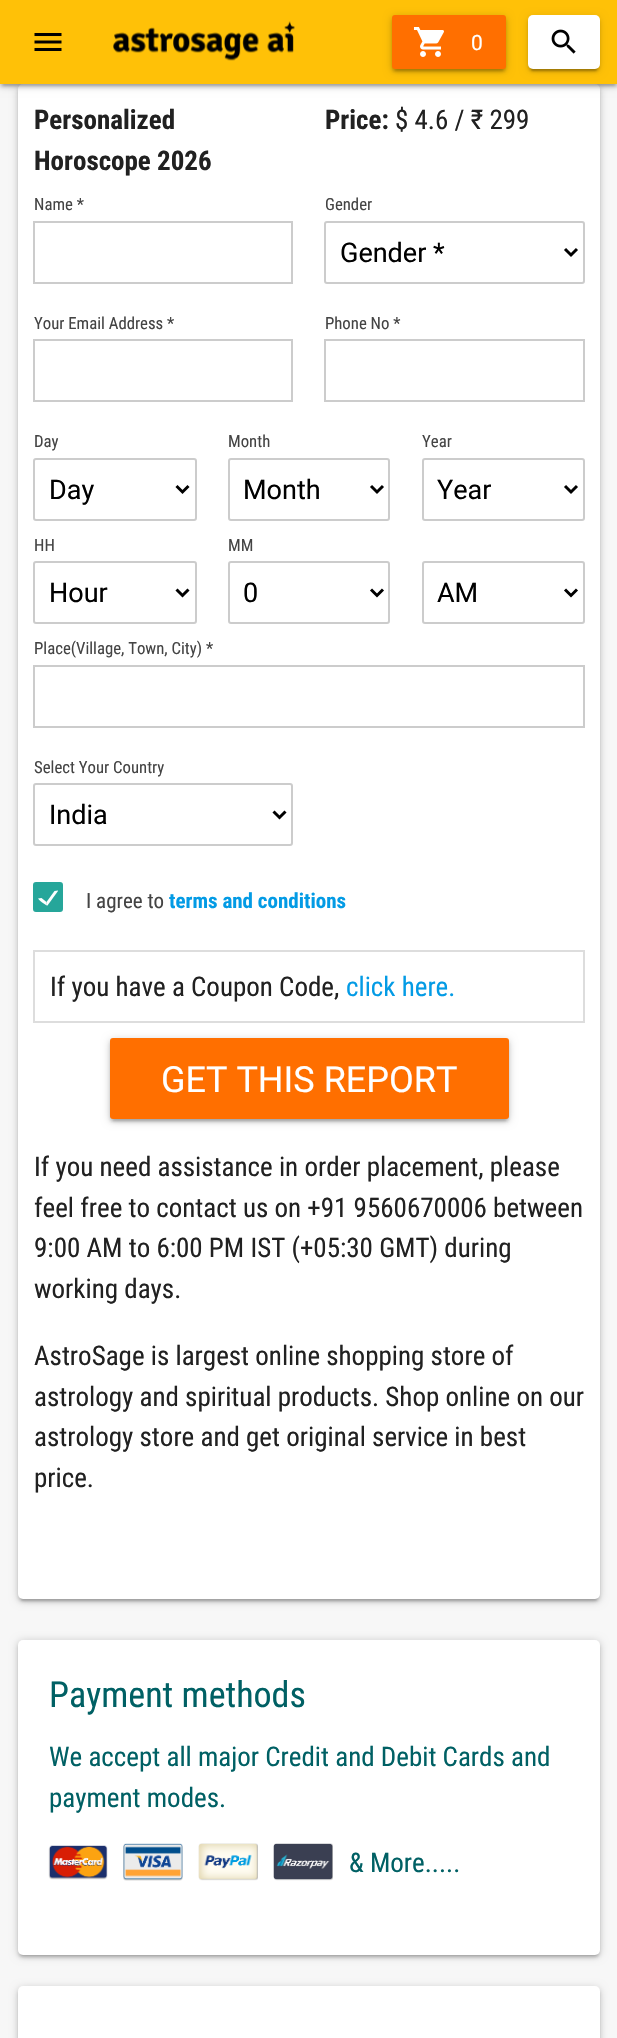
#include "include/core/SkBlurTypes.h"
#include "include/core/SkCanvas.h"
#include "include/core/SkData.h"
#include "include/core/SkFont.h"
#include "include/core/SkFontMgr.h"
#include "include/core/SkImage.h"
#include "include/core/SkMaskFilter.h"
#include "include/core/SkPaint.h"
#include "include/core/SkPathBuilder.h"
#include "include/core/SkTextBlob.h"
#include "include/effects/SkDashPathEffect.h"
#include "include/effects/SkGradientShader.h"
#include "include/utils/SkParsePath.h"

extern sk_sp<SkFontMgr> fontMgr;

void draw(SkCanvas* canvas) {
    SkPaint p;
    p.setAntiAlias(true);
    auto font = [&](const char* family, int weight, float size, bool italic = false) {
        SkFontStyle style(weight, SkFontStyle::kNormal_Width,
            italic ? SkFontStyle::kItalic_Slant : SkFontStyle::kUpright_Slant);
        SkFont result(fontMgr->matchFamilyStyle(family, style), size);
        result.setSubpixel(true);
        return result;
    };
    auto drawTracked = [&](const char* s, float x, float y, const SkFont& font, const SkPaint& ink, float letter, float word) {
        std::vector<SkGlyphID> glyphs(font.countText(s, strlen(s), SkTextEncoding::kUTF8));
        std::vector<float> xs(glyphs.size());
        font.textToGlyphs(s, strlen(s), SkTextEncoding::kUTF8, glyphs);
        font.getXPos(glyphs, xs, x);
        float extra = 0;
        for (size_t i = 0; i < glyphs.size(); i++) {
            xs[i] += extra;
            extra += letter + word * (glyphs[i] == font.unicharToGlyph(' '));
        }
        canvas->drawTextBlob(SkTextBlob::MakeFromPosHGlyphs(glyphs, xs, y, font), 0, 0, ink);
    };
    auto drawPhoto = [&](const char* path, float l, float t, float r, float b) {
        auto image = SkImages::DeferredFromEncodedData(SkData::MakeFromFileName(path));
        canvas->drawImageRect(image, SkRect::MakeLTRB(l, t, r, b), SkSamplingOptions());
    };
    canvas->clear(0xFFF7F7F7);
    p.setColor(0x33000000);
    p.setMaskFilter(SkMaskFilter::MakeBlur(kNormal_SkBlurStyle, 4));
    canvas->drawRoundRect(SkRect::MakeLTRB(18, 86, 600, 1601), 5, 5, p);
    p.setMaskFilter(nullptr);
    p.setColor(0x1F000000);
    p.setMaskFilter(SkMaskFilter::MakeBlur(kNormal_SkBlurStyle, 1));
    canvas->drawRoundRect(SkRect::MakeLTRB(21, 92, 597, 1601), 1.5f, 1.5f, p);
    p.setMaskFilter(nullptr);
    p.setColor(0x24000000);
    p.setMaskFilter(SkMaskFilter::MakeBlur(kNormal_SkBlurStyle, 1.5f));
    canvas->drawRoundRect(SkRect::MakeLTRB(18, 87, 600, 1602), 5, 5, p);
    p.setMaskFilter(nullptr);
    p.setColor(0xFFFFFFFF);
    canvas->drawRoundRect(SkRect::MakeLTRB(18, 84, 600, 1599), 5, 5, p);
    p.setColor(0x33000000);
    p.setMaskFilter(SkMaskFilter::MakeBlur(kNormal_SkBlurStyle, 4));
    canvas->drawRect(SkRect::MakeLTRB(0, 2, 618, 86), p);
    p.setMaskFilter(nullptr);
    p.setColor(0x1F000000);
    p.setMaskFilter(SkMaskFilter::MakeBlur(kNormal_SkBlurStyle, 1));
    canvas->drawRect(SkRect::MakeLTRB(3, 8, 615, 86), p);
    p.setMaskFilter(nullptr);
    p.setColor(0x24000000);
    p.setMaskFilter(SkMaskFilter::MakeBlur(kNormal_SkBlurStyle, 1.5f));
    canvas->drawRect(SkRect::MakeLTRB(0, 3, 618, 87), p);
    p.setMaskFilter(nullptr);
    p.setColor(0xFFFFC107);
    canvas->drawRect(SkRect::MakeLTRB(0, 0, 617, 84), p);
    drawPhoto("media/1.png", 34, 33, 62, 51);
    drawPhoto("media/2.png", 113, 21, 295, 61);
    p.setColor(0x33000000);
    p.setMaskFilter(SkMaskFilter::MakeBlur(kNormal_SkBlurStyle, 4));
    canvas->drawRoundRect(SkRect::MakeLTRB(392, 17, 506, 71), 3, 3, p);
    p.setMaskFilter(nullptr);
    p.setColor(0x1F000000);
    p.setMaskFilter(SkMaskFilter::MakeBlur(kNormal_SkBlurStyle, 1));
    canvas->drawRect(SkRect::MakeLTRB(395, 23, 503, 71), p);
    p.setMaskFilter(nullptr);
    p.setColor(0x24000000);
    p.setMaskFilter(SkMaskFilter::MakeBlur(kNormal_SkBlurStyle, 1.5f));
    canvas->drawRoundRect(SkRect::MakeLTRB(392, 18, 506, 72), 3, 3, p);
    p.setMaskFilter(nullptr);
    p.setColor(0xFFFF6F00);
    canvas->drawRoundRect(SkRect::MakeLTRB(392, 15, 506, 69), 3, 3, p);
    drawPhoto("media/3.png", 413, 27, 444, 57);
    auto font1 = font("Roboto", 400, 21);
    p.setColor(0xFFFFFFFF);
    drawTracked("0", 471, 50, font1, p, 1, 0);
    p.setColor(0x33000000);
    p.setMaskFilter(SkMaskFilter::MakeBlur(kNormal_SkBlurStyle, 1));
    canvas->drawRoundRect(SkRect::MakeLTRB(531, 23, 597, 71), 1.5f, 1.5f, p);
    p.setMaskFilter(nullptr);
    p.setColor(0x1F000000);
    p.setMaskFilter(SkMaskFilter::MakeBlur(kNormal_SkBlurStyle, 4));
    canvas->drawRoundRect(SkRect::MakeLTRB(528, 17, 600, 71), 5, 5, p);
    p.setMaskFilter(nullptr);
    p.setColor(0x24000000);
    p.setMaskFilter(SkMaskFilter::MakeBlur(kNormal_SkBlurStyle, 1.5f));
    canvas->drawRoundRect(SkRect::MakeLTRB(528, 18, 600, 72), 5, 5, p);
    p.setMaskFilter(nullptr);
    p.setColor(0xFFFFFFFF);
    canvas->drawRoundRect(SkRect::MakeLTRB(528, 15, 600, 69), 5, 5, p);
    drawPhoto("media/4.png", 551, 29, 576, 54);
    auto font2 = font("Roboto Condensed", 700, 27);
    p.setColor(0xFF212121);
    {
        const struct { const char* s; float x, y; } items[] = {
            {"Personalized", 34, 129},
            {"Horoscope 2026", 34, 170},
            {"Price:", 325, 129},
        };
        for (auto [s, x, y] : items) {
            canvas->drawString(s, x, y, font2, p);
        }
    }
    auto font3 = font("Roboto Condensed", 400, 27);
    canvas->drawString("$ 4.6 / ₹ 299", 395, 129, font3, p);
    auto font4 = font("Roboto Condensed", 400, 16.75f);
    p.setColor(0xFF444444);
    canvas->drawString("Name *", 34, 210, font4, p);
    p.setStyle(SkPaint::kStroke_Style);
    p.setStrokeWidth(2);
    p.setColor(0xFFCCCCCC);
    canvas->drawRect(SkRect::MakeLTRB(34, 222, 292, 283), p);
    p.setStyle(SkPaint::kFill_Style);
    p.setColor(0xFF444444);
    canvas->drawString("Gender", 325, 210, font4, p);
    p.setStyle(SkPaint::kStroke_Style);
    p.setColor(0xFFCCCCCC);
    canvas->drawRoundRect(SkRect::MakeLTRB(325, 222, 584, 283), 2, 2, p);
    p.setStrokeWidth(3);
    p.setColor(0xFF000000);
    canvas->drawPath(SkPathBuilder().moveTo(565, 249).lineTo(571, 255).lineTo(577, 249).detach(), p);
    auto font5 = font("Roboto", 400, 27);
    p.setStyle(SkPaint::kFill_Style);
    canvas->drawString("Gender *", 340, 262, font5, p);
    p.setColor(0xFF444444);
    canvas->drawString("Your Email Address *", 34, 329, font4, p);
    p.setStyle(SkPaint::kStroke_Style);
    p.setStrokeWidth(2);
    p.setColor(0xFFCCCCCC);
    canvas->drawRect(SkRect::MakeLTRB(34, 340, 292, 401), p);
    p.setStyle(SkPaint::kFill_Style);
    p.setColor(0xFF444444);
    canvas->drawString("Phone No *", 325, 329, font4, p);
    p.setStyle(SkPaint::kStroke_Style);
    p.setColor(0xFFCCCCCC);
    canvas->drawRect(SkRect::MakeLTRB(325, 340, 584, 401), p);
    p.setStyle(SkPaint::kFill_Style);
    p.setColor(0xFF444444);
    canvas->drawString("Day", 34, 447, font4, p);
    p.setStyle(SkPaint::kStroke_Style);
    p.setColor(0xFFCCCCCC);
    canvas->drawRoundRect(SkRect::MakeLTRB(34, 459, 196, 520), 2, 2, p);
    p.setStrokeWidth(3);
    p.setColor(0xFF000000);
    canvas->drawPath(SkPathBuilder().moveTo(176.5f, 486).lineTo(182.5f, 492).lineTo(188.5f, 486).detach(), p);
    p.setStyle(SkPaint::kFill_Style);
    canvas->drawString("Day", 49, 499, font5, p);
    p.setColor(0xFF444444);
    canvas->drawString("Month", 228, 447, font4, p);
    p.setStyle(SkPaint::kStroke_Style);
    p.setStrokeWidth(2);
    p.setColor(0xFFCCCCCC);
    canvas->drawRoundRect(SkRect::MakeLTRB(229, 459, 389, 520), 2, 2, p);
    p.setStrokeWidth(3);
    p.setColor(0xFF000000);
    canvas->drawPath(SkPathBuilder().moveTo(371, 486).lineTo(377, 492).lineTo(383, 486).detach(), p);
    p.setStyle(SkPaint::kFill_Style);
    canvas->drawString("Month", 243, 499, font5, p);
    p.setColor(0xFF444444);
    canvas->drawString("Year", 422, 447, font4, p);
    p.setStyle(SkPaint::kStroke_Style);
    p.setStrokeWidth(2);
    p.setColor(0xFFCCCCCC);
    canvas->drawRoundRect(SkRect::MakeLTRB(423, 459, 584, 520), 2, 2, p);
    p.setStrokeWidth(3);
    p.setColor(0xFF000000);
    canvas->drawPath(SkPathBuilder().moveTo(565, 486).lineTo(571, 492).lineTo(577, 486).detach(), p);
    p.setStyle(SkPaint::kFill_Style);
    canvas->drawString("Year", 437, 499, font5, p);
    p.setColor(0xFF444444);
    canvas->drawString("HH", 34, 551, font4, p);
    p.setStyle(SkPaint::kStroke_Style);
    p.setStrokeWidth(2);
    p.setColor(0xFFCCCCCC);
    canvas->drawRoundRect(SkRect::MakeLTRB(34, 562, 196, 623), 2, 2, p);
    p.setStrokeWidth(3);
    p.setColor(0xFF000000);
    canvas->drawPath(SkPathBuilder().moveTo(176.5f, 589.5f).lineTo(182.5f, 595.5f).lineTo(188.5f, 589.5f).detach(), p);
    p.setStyle(SkPaint::kFill_Style);
    canvas->drawString("Hour", 49, 602, font5, p);
    p.setColor(0xFF444444);
    canvas->drawString("MM", 228, 551, font4, p);
    p.setStyle(SkPaint::kStroke_Style);
    p.setStrokeWidth(2);
    p.setColor(0xFFCCCCCC);
    canvas->drawRoundRect(SkRect::MakeLTRB(229, 562, 389, 623), 2, 2, p);
    p.setStrokeWidth(3);
    p.setColor(0xFF000000);
    canvas->drawPath(SkPathBuilder().moveTo(371, 589.5f).lineTo(377, 595.5f).lineTo(383, 589.5f).detach(), p);
    p.setStyle(SkPaint::kFill_Style);
    canvas->drawString("0", 243, 602, font5, p);
    p.setStyle(SkPaint::kStroke_Style);
    p.setStrokeWidth(2);
    p.setColor(0xFFCCCCCC);
    canvas->drawRoundRect(SkRect::MakeLTRB(423, 562, 584, 623), 2, 2, p);
    p.setStrokeWidth(3);
    p.setColor(0xFF000000);
    canvas->drawPath(SkPathBuilder().moveTo(565, 589.5f).lineTo(571, 595.5f).lineTo(577, 589.5f).detach(), p);
    p.setStyle(SkPaint::kFill_Style);
    canvas->drawString("AM", 437, 602, font5, p);
    p.setColor(0xFF444444);
    canvas->drawString("Place(Village, Town, City) *", 34, 654, font4, p);
    p.setStyle(SkPaint::kStroke_Style);
    p.setStrokeWidth(2);
    p.setColor(0xFFCCCCCC);
    canvas->drawRect(SkRect::MakeLTRB(34, 666, 584, 727), p);
    p.setStyle(SkPaint::kFill_Style);
    p.setColor(0xFF444444);
    canvas->drawString("Select Your Country", 34, 773, font4, p);
    p.setStyle(SkPaint::kStroke_Style);
    p.setColor(0xFFCCCCCC);
    canvas->drawRoundRect(SkRect::MakeLTRB(34, 784, 292, 845), 2, 2, p);
    p.setStrokeWidth(3);
    p.setColor(0xFF000000);
    canvas->drawPath(SkPathBuilder().moveTo(273.5f, 811.5f).lineTo(279.5f, 817.5f).lineTo(285.5f, 811.5f).detach(), p);
    p.setStyle(SkPaint::kFill_Style);
    canvas->drawString("India", 49, 824, font5, p);
    p.setColor(0xFF26A69A);
    canvas->drawRoundRect(SkRect::MakeLTRB(34.5f, 883.5f, 61.5f, 910.5f), 1.5f, 1.5f, p);
    p.setStyle(SkPaint::kStroke_Style);
    canvas->drawRoundRect(SkRect::MakeLTRB(34.5f, 883.5f, 61.5f, 910.5f), 1.5f, 1.5f, p);
    p.setStyle(SkPaint::kFill_Style);
    p.setColor(0xFFFFFFFF);
    canvas->drawPath(SkPathBuilder().moveTo(47.5f, 905.5f).lineTo(47, 905.5f).lineTo(46.5f, 902).lineTo(54.5f, 891).lineTo(58, 890.5f).lineTo(58, 891).close().detach(), p);
    canvas->drawPath(SkPathBuilder().moveTo(47, 905.5f).cubicTo(46, 905.5f, 38, 899.5f, 38, 898.5f).lineTo(41.5f, 898).lineTo(46.5f, 902).close().detach(), p);
    auto font6 = font("Roboto Condensed", 400, 21);
    p.setColor(0xFF444444);
    canvas->drawString("I agree to", 86, 908, font6, p);
    auto font7 = font("Roboto Condensed", 700, 21);
    p.setColor(0xFF039BE5);
    canvas->drawString("terms and conditions", 169, 908, font7, p);
    p.setStyle(SkPaint::kStroke_Style);
    p.setStrokeWidth(2);
    p.setColor(0xFFDDDDDD);
    canvas->drawRect(SkRect::MakeLTRB(34, 951, 584, 1022), p);
    p.setStyle(SkPaint::kFill_Style);
    p.setColor(0xFF212121);
    canvas->drawString("If you have a Coupon Code,", 50, 996, font3, p);
    p.setColor(0xFF039BE5);
    canvas->drawString("click here.", 346, 996, font3, p);
    p.setColor(0x33000000);
    p.setMaskFilter(SkMaskFilter::MakeBlur(kNormal_SkBlurStyle, 4));
    canvas->drawRoundRect(SkRect::MakeLTRB(110, 1040, 509, 1121), 3, 3, p);
    p.setMaskFilter(nullptr);
    p.setColor(0x1F000000);
    p.setMaskFilter(SkMaskFilter::MakeBlur(kNormal_SkBlurStyle, 1));
    canvas->drawRect(SkRect::MakeLTRB(113, 1046, 506, 1121), p);
    p.setMaskFilter(nullptr);
    p.setColor(0x24000000);
    p.setMaskFilter(SkMaskFilter::MakeBlur(kNormal_SkBlurStyle, 1.5f));
    canvas->drawRoundRect(SkRect::MakeLTRB(110, 1041, 509, 1122), 3, 3, p);
    p.setMaskFilter(nullptr);
    p.setColor(0xFFFF6F00);
    canvas->drawRoundRect(SkRect::MakeLTRB(110, 1038, 509, 1119), 3, 3, p);
    auto font8 = font("Roboto", 400, 36);
    p.setColor(0xFFFFFFFF);
    canvas->drawString("GET THIS REPORT", 161, 1092, font8, p);
    p.setColor(0xFF212121);
    {
        const struct { const char* s; float x, y; } items[] = {
            {"If you need assistance in order placement, please", 34, 1176},
            {"feel free to contact us on +91 9560670006 between", 34, 1217},
            {"9:00 AM to 6:00 PM IST (+05:30 GMT) during", 34, 1257},
            {"working days.", 34, 1298},
            {"AstroSage is largest online shopping store of", 34, 1365},
            {"astrology and spiritual products. Shop online on our", 34, 1406},
            {"astrology store and get original service in best", 34, 1446},
            {"price.", 34, 1487},
        };
        for (auto [s, x, y] : items) {
            canvas->drawString(s, x, y, font3, p);
        }
    }
    p.setColor(0x33000000);
    p.setMaskFilter(SkMaskFilter::MakeBlur(kNormal_SkBlurStyle, 4));
    canvas->drawRoundRect(SkRect::MakeLTRB(18, 1641, 600, 1956), 5, 5, p);
    p.setMaskFilter(nullptr);
    p.setColor(0x1F000000);
    p.setMaskFilter(SkMaskFilter::MakeBlur(kNormal_SkBlurStyle, 1));
    canvas->drawRoundRect(SkRect::MakeLTRB(21, 1647, 597, 1956), 1.5f, 1.5f, p);
    p.setMaskFilter(nullptr);
    p.setColor(0x24000000);
    p.setMaskFilter(SkMaskFilter::MakeBlur(kNormal_SkBlurStyle, 1.5f));
    canvas->drawRoundRect(SkRect::MakeLTRB(18, 1643, 600, 1958), 5, 5, p);
    p.setMaskFilter(nullptr);
    p.setColor(0xFFFFFFFF);
    canvas->drawRoundRect(SkRect::MakeLTRB(18, 1640, 600, 1955), 5, 5, p);
    auto font9 = font("Roboto Condensed", 400, 36);
    p.setColor(0xFF006064);
    canvas->drawString("Payment methods", 49, 1707, font9, p);
    canvas->drawString("We accept all major Credit and Debit Cards and", 49, 1766, font3, p);
    canvas->drawString("payment modes.", 49, 1807, font3, p);
    drawPhoto("media/5.png", 48, 1845, 108, 1880);
    drawPhoto("media/6.png", 123, 1843, 183, 1881);
    drawPhoto("media/7.png", 198, 1843, 258, 1881);
    drawPhoto("media/8.png", 273, 1843, 333, 1881);
    canvas->drawString("& More.....", 349, 1872, font3, p);
    p.setColor(0x33000000);
    p.setMaskFilter(SkMaskFilter::MakeBlur(kNormal_SkBlurStyle, 4));
    canvas->drawRoundRect(SkRect::MakeLTRB(18, 1988, 600, 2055), 5, 5, p);
    p.setMaskFilter(nullptr);
    p.setColor(0x24000000);
    p.setMaskFilter(SkMaskFilter::MakeBlur(kNormal_SkBlurStyle, 1.5f));
    canvas->drawRoundRect(SkRect::MakeLTRB(18, 1989, 600, 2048), 5, 5, p);
    p.setMaskFilter(nullptr);
    p.setColor(0xFFFFFFFF);
    canvas->drawRoundRect(SkRect::MakeLTRB(18, 1986, 600, 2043), 5, 5, p);
}
